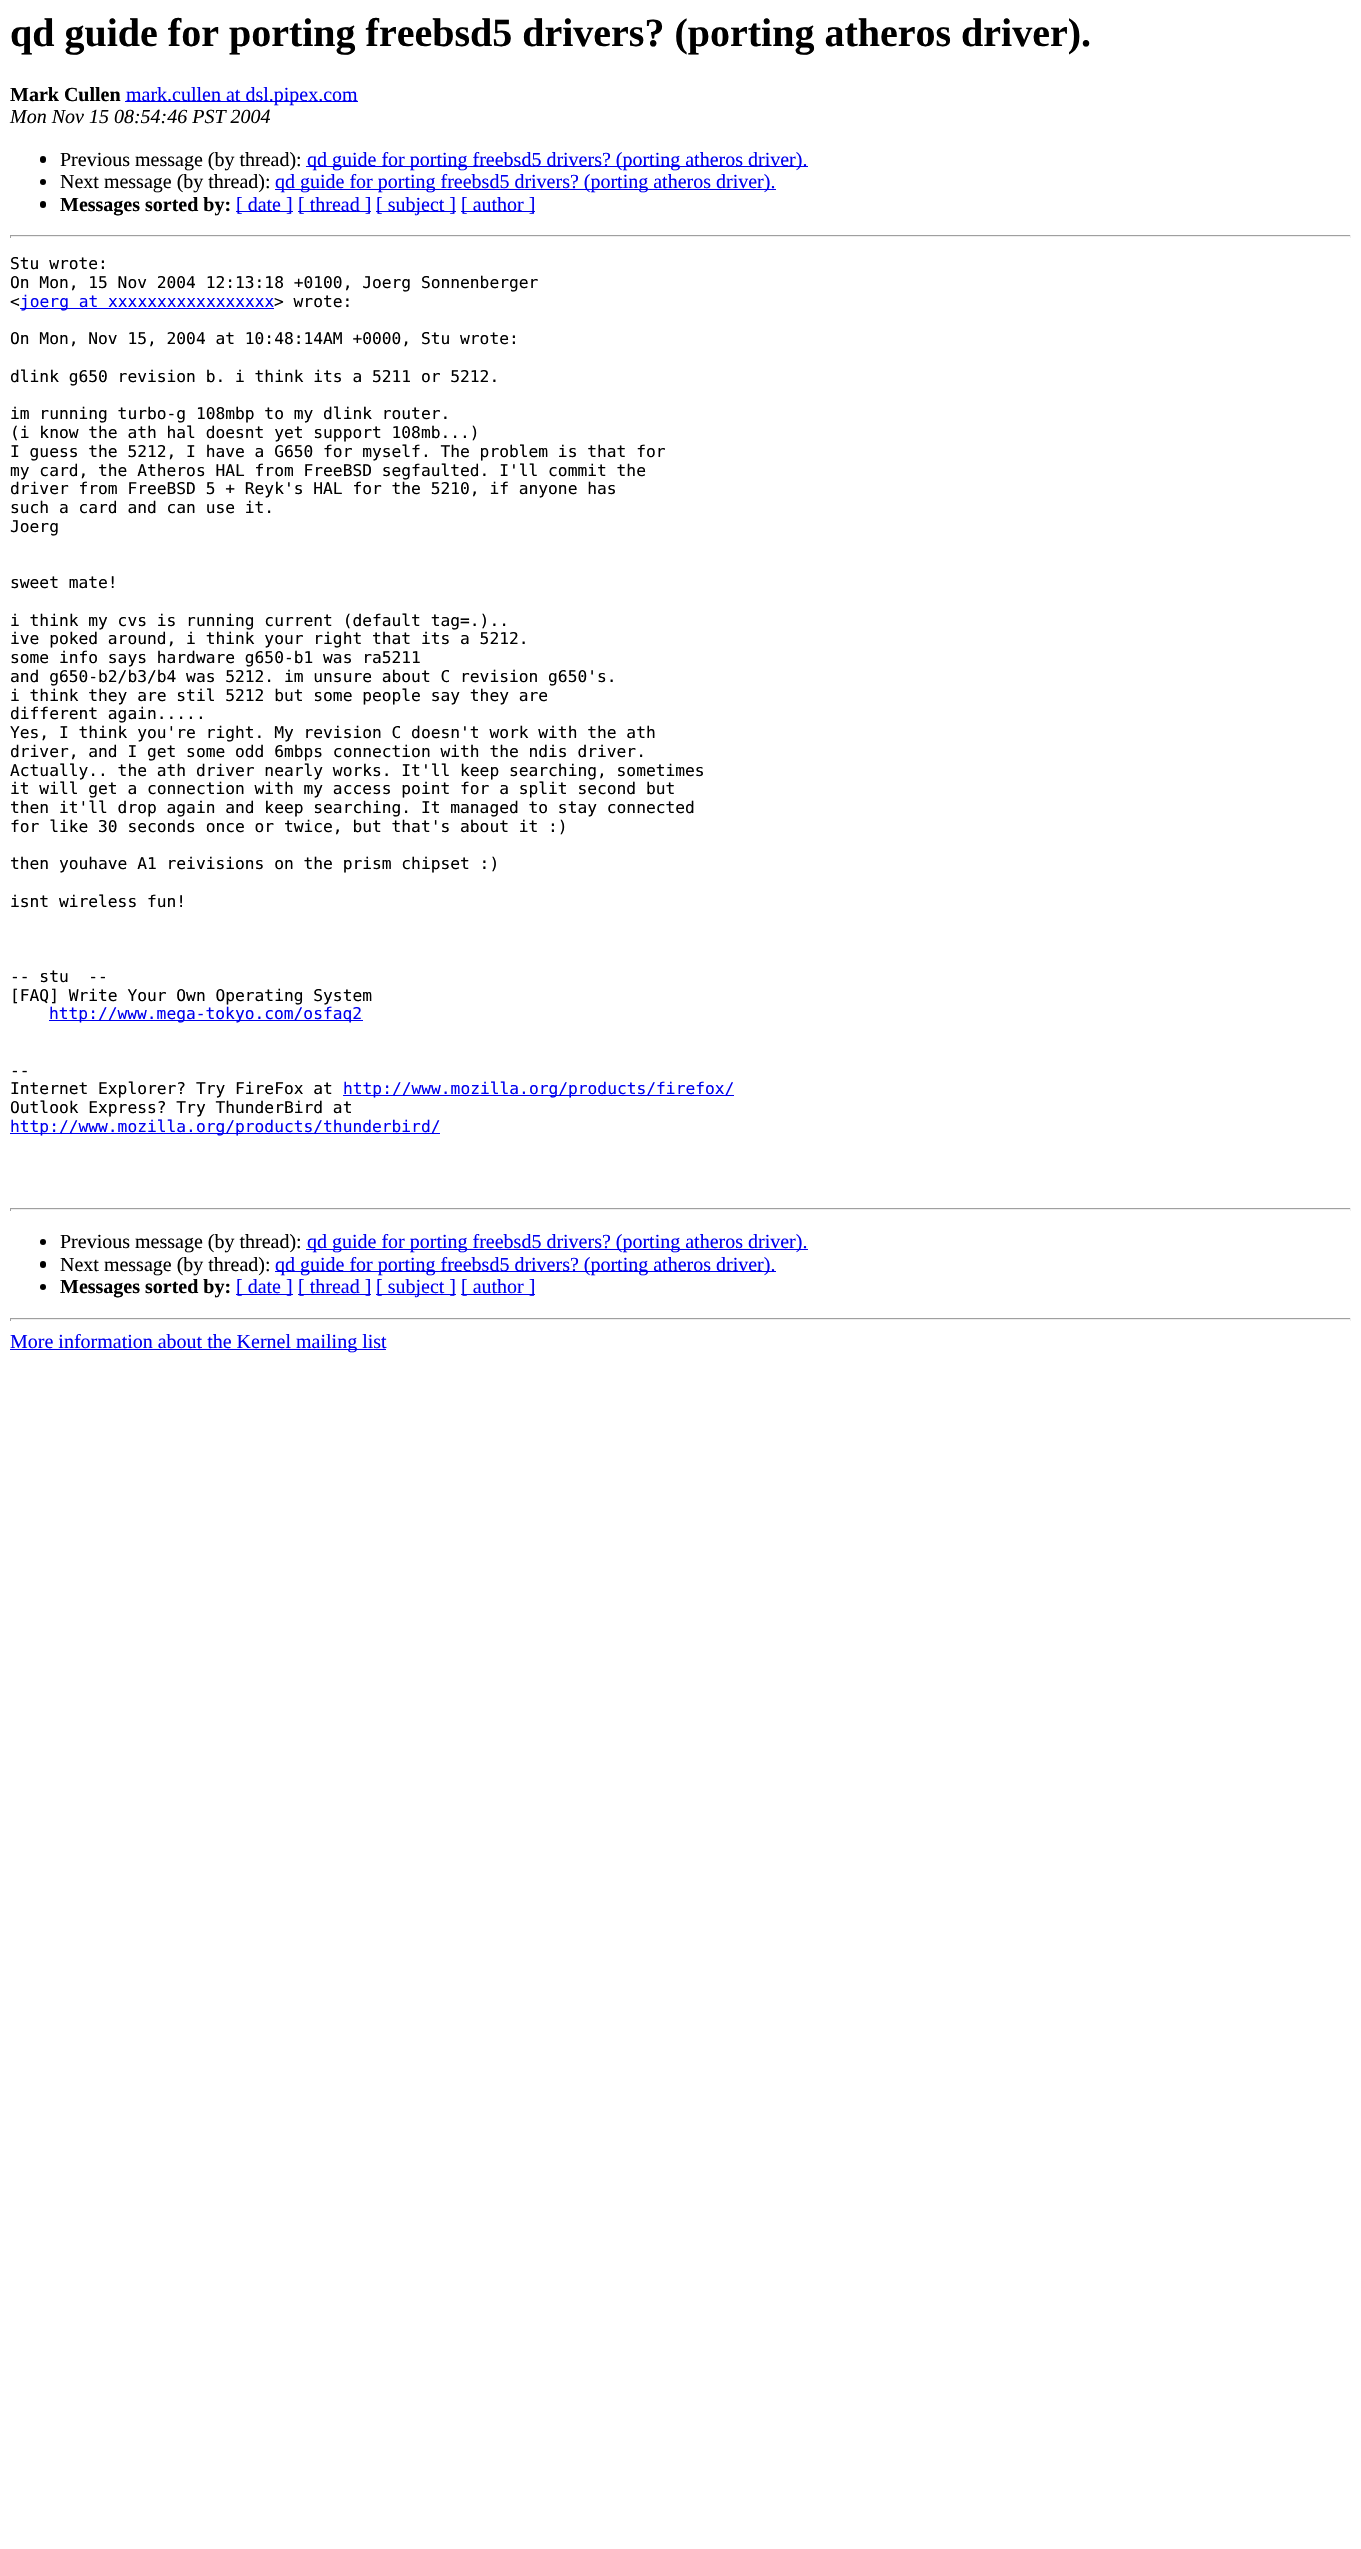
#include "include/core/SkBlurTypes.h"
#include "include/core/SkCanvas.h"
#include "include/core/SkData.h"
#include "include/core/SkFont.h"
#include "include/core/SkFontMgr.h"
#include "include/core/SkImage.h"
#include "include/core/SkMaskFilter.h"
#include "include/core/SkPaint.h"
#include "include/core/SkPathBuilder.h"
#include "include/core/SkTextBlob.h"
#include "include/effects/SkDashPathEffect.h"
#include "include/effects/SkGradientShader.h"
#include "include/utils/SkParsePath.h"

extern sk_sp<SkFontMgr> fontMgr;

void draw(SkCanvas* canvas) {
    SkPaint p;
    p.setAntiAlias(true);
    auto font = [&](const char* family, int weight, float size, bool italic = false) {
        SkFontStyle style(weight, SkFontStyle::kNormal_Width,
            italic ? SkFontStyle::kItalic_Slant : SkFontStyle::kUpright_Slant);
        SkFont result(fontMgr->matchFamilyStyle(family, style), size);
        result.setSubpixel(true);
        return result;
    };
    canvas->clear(0xFFFFFFFF);
    auto font1 = font("Liberation Serif", 700, 40);
    p.setColor(0xFF000000);
    canvas->drawString("qd guide for porting freebsd5 drivers? (porting atheros driver).", 10, 46, font1, p);
    auto font2 = font("Liberation Serif", 700, 20);
    canvas->drawString("Mark Cullen", 10, 101, font2, p);
    p.setColor(0xFF0000EE);
    canvas->drawRect(SkRect::MakeLTRB(125, 101, 358, 102), p);
    auto font3 = font("Liberation Serif", 400, 20);
    canvas->drawString("mark.cullen at dsl.pipex.com", 126, 101, font3, p);
    auto font4 = font("Liberation Serif", 400, 20, true);
    p.setColor(0xFF000000);
    canvas->drawString("Mon Nov 15 08:54:46 PST 2004", 10, 123, font4, p);
    canvas->drawRoundRect(SkRect::MakeLTRB(40, 156, 46, 163), 3, 3, p);
    canvas->drawString("Previous message (by thread):", 60, 166, font3, p);
    p.setColor(0xFF0000EE);
    canvas->drawRect(SkRect::MakeLTRB(306, 166, 808, 167), p);
    canvas->drawString("qd guide for porting freebsd5 drivers? (porting atheros driver).", 307, 166, font3, p);
    p.setColor(0xFF000000);
    canvas->drawCircle(43, 182, 3, p);
    canvas->drawString("Next message (by thread):", 60, 188, font3, p);
    p.setColor(0xFF0000EE);
    canvas->drawRect(SkRect::MakeLTRB(275, 189, 776, 190), p);
    canvas->drawString("qd guide for porting freebsd5 drivers? (porting atheros driver).", 275, 188, font3, p);
    p.setColor(0xFF000000);
    canvas->drawRoundRect(SkRect::MakeLTRB(40, 201, 46, 208), 3, 3, p);
    canvas->drawString("Messages sorted by:", 60, 211, font2, p);
    p.setColor(0xFF0000EE);
    canvas->drawRect(SkRect::MakeLTRB(236, 211, 293, 212), p);
    canvas->drawString("[ date ]", 236, 211, font3, p);
    canvas->drawRect(SkRect::MakeLTRB(298, 211, 371, 212), p);
    canvas->drawString("[ thread ]", 298, 211, font3, p);
    canvas->drawRect(SkRect::MakeLTRB(376, 211, 456, 212), p);
    canvas->drawString("[ subject ]", 376, 211, font3, p);
    canvas->drawRect(SkRect::MakeLTRB(461, 211, 535, 212), p);
    canvas->drawString("[ author ]", 461, 211, font3, p);
    {
        const struct { float l, t, r, b; SkColor color; } items[] = {
            {10, 235, 1351, 236, 0xFF9F9F9F},
            {1350, 235, 1351, 238, 0xFFEEEEEE},
            {10, 236, 1351, 237, 0xFFEEEEEE},
            {10, 235, 11, 238, 0xFF9F9F9F},
        };
        for (auto [l, t, r, b, color] : items) {
            p.setColor(color);
            canvas->drawRect(SkRect::MakeLTRB(l, t, r, b), p);
        }
    }
    auto font5 = font("DejaVu Sans Mono", 400, 16.25f);
    p.setColor(0xFF000000);
    {
        const struct { const char* s; float x, y; } items[] = {
            {"Stu wrote:", 10, 269},
            {"On Mon, 15 Nov 2004 12:13:18 +0100, Joerg Sonnenberger", 10, 288},
            {"<", 10, 307},
        };
        for (auto [s, x, y] : items) {
            canvas->drawString(s, x, y, font5, p);
        }
    }
    p.setColor(0xFF0000EE);
    canvas->drawRect(SkRect::MakeLTRB(20, 308, 274, 309), p);
    canvas->drawString("joerg at xxxxxxxxxxxxxxxxx", 20, 307, font5, p);
    p.setColor(0xFF000000);
    {
        const struct { const char* s; float x, y; } items[] = {
            {"> wrote:", 274, 307},
            {"On Mon, Nov 15, 2004 at 10:48:14AM +0000, Stu wrote:", 10, 344},
            {"dlink g650 revision b. i think its a 5211 or 5212.", 10, 382},
            {"im running turbo-g 108mbp to my dlink router.", 10, 419},
            {"(i know the ath hal doesnt yet support 108mb...)", 10, 438},
            {"I guess the 5212, I have a G650 for myself. The problem is that for", 10, 457},
            {"my card, the Atheros HAL from FreeBSD segfaulted. I'll commit the", 10, 476},
            {"driver from FreeBSD 5 + Reyk's HAL for the 5210, if anyone has", 10, 494},
            {"such a card and can use it.", 10, 513},
            {"Joerg", 10, 532},
            {"sweet mate!", 10, 588},
            {"i think my cvs is running current (default tag=.)..", 10, 626},
            {"ive poked around, i think your right that its a 5212.", 10, 644},
            {"some info says hardware g650-b1 was ra5211", 10, 663},
            {"and g650-b2/b3/b4 was 5212. im unsure about C revision g650's.", 10, 682},
            {"i think they are stil 5212 but some people say they are", 10, 701},
            {"different again.....", 10, 719},
            {"Yes, I think you're right. My revision C doesn't work with the ath", 10, 738},
            {"driver, and I get some odd 6mbps connection with the ndis driver.", 10, 757},
            {"Actually.. the ath driver nearly works. It'll keep searching, sometimes", 10, 776},
            {"it will get a connection with my access point for a split second but", 10, 794},
            {"then it'll drop again and keep searching. It managed to stay connected", 10, 813},
            {"for like 30 seconds once or twice, but that's about it :)", 10, 832},
            {"then youhave A1 reivisions on the prism chipset :)", 10, 869},
            {"isnt wireless fun!", 10, 907},
            {"-- stu  --", 10, 982},
            {"[FAQ] Write Your Own Operating System", 10, 1001},
        };
        for (auto [s, x, y] : items) {
            canvas->drawString(s, x, y, font5, p);
        }
    }
    p.setColor(0xFF0000EE);
    canvas->drawRect(SkRect::MakeLTRB(49, 1020, 363, 1021), p);
    canvas->drawString("http://www.mega-tokyo.com/osfaq2", 49, 1019, font5, p);
    p.setColor(0xFF000000);
    canvas->drawString("--", 10, 1076, font5, p);
    canvas->drawString("Internet Explorer? Try FireFox at", 10, 1094, font5, p);
    p.setColor(0xFF0000EE);
    canvas->drawRect(SkRect::MakeLTRB(343, 1095, 734, 1096), p);
    canvas->drawString("http://www.mozilla.org/products/firefox/", 343, 1094, font5, p);
    p.setColor(0xFF000000);
    canvas->drawString("Outlook Express? Try ThunderBird at", 10, 1113, font5, p);
    p.setColor(0xFF0000EE);
    canvas->drawRect(SkRect::MakeLTRB(10, 1133, 440, 1134), p);
    canvas->drawString("http://www.mozilla.org/products/thunderbird/", 10, 1132, font5, p);
    {
        const struct { float l, t, r, b; SkColor color; } items[] = {
            {10, 1208, 1351, 1209, 0xFF9F9F9F},
            {1350, 1208, 1351, 1211, 0xFFEEEEEE},
            {10, 1209, 1351, 1210, 0xFFEEEEEE},
            {10, 1208, 11, 1211, 0xFF9F9F9F},
        };
        for (auto [l, t, r, b, color] : items) {
            p.setColor(color);
            canvas->drawRect(SkRect::MakeLTRB(l, t, r, b), p);
        }
    }
    p.setColor(0xFF000000);
    canvas->drawCircle(43, 1242, 3, p);
    canvas->drawString("Previous message (by thread):", 60, 1248, font3, p);
    p.setColor(0xFF0000EE);
    canvas->drawRect(SkRect::MakeLTRB(306, 1249, 808, 1250), p);
    canvas->drawString("qd guide for porting freebsd5 drivers? (porting atheros driver).", 307, 1248, font3, p);
    p.setColor(0xFF000000);
    canvas->drawRoundRect(SkRect::MakeLTRB(40, 1261, 46, 1268), 3, 3, p);
    canvas->drawString("Next message (by thread):", 60, 1271, font3, p);
    p.setColor(0xFF0000EE);
    canvas->drawRect(SkRect::MakeLTRB(275, 1271, 776, 1272), p);
    canvas->drawString("qd guide for porting freebsd5 drivers? (porting atheros driver).", 275, 1271, font3, p);
    p.setColor(0xFF000000);
    canvas->drawCircle(43, 1287, 3, p);
    canvas->drawString("Messages sorted by:", 60, 1293, font2, p);
    p.setColor(0xFF0000EE);
    canvas->drawRect(SkRect::MakeLTRB(236, 1294, 293, 1295), p);
    canvas->drawString("[ date ]", 236, 1293, font3, p);
    canvas->drawRect(SkRect::MakeLTRB(298, 1294, 371, 1295), p);
    canvas->drawString("[ thread ]", 298, 1293, font3, p);
    canvas->drawRect(SkRect::MakeLTRB(376, 1294, 456, 1295), p);
    canvas->drawString("[ subject ]", 376, 1293, font3, p);
    canvas->drawRect(SkRect::MakeLTRB(461, 1294, 535, 1295), p);
    canvas->drawString("[ author ]", 461, 1293, font3, p);
    {
        const struct { float l, t, r, b; SkColor color; } items[] = {
            {10, 1318, 1351, 1319, 0xFF9F9F9F},
            {1350, 1318, 1351, 1321, 0xFFEEEEEE},
            {10, 1319, 1351, 1320, 0xFFEEEEEE},
            {10, 1318, 11, 1321, 0xFF9F9F9F},
            {10, 1349, 386, 1350, 0xFF0000EE},
        };
        for (auto [l, t, r, b, color] : items) {
            p.setColor(color);
            canvas->drawRect(SkRect::MakeLTRB(l, t, r, b), p);
        }
    }
    canvas->drawString("More information about the Kernel mailing list", 10, 1348, font3, p);
}
